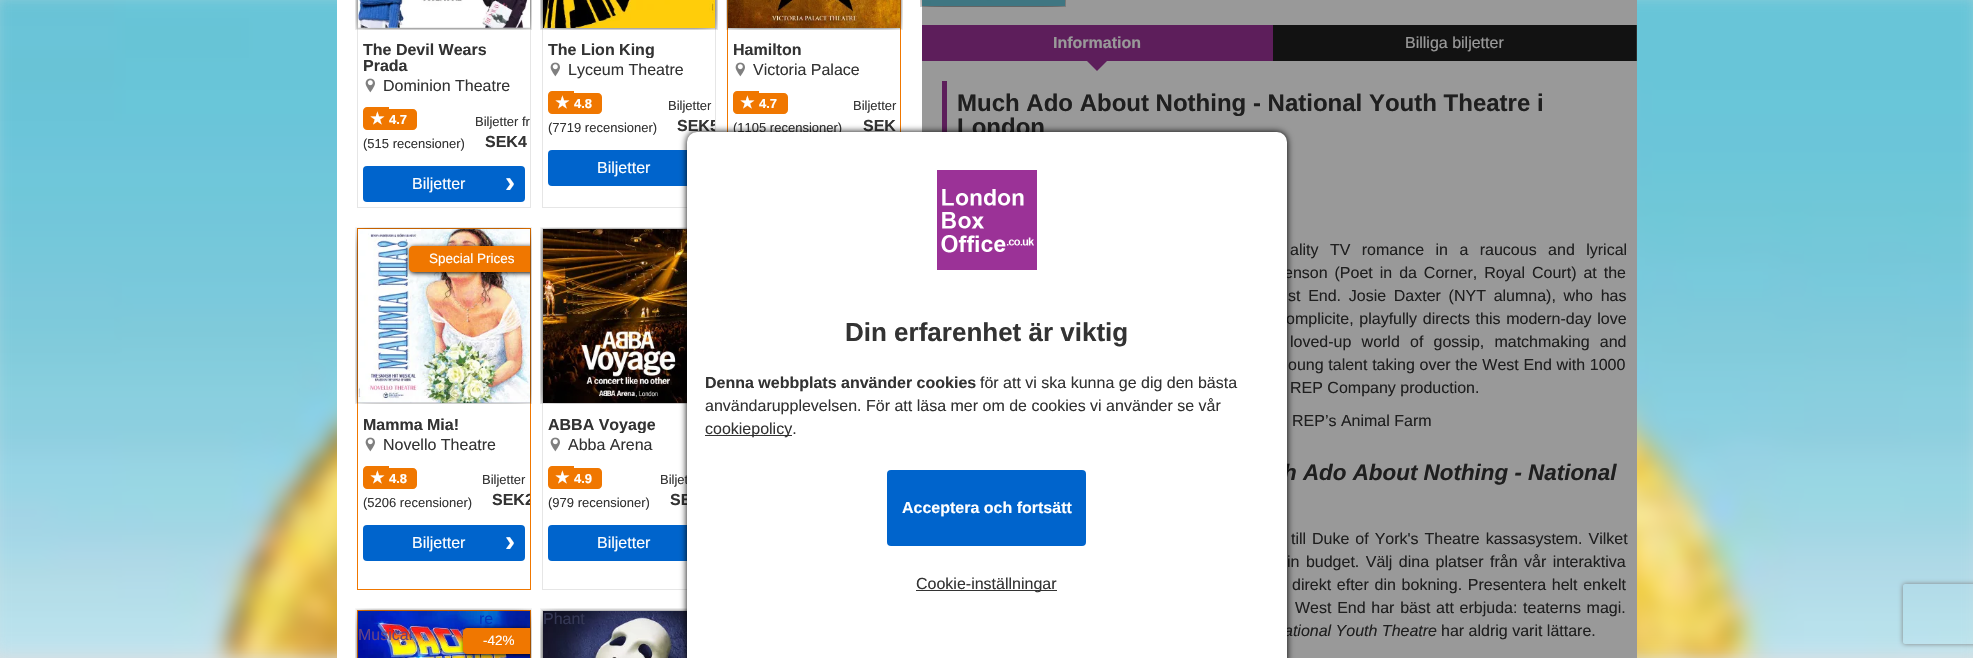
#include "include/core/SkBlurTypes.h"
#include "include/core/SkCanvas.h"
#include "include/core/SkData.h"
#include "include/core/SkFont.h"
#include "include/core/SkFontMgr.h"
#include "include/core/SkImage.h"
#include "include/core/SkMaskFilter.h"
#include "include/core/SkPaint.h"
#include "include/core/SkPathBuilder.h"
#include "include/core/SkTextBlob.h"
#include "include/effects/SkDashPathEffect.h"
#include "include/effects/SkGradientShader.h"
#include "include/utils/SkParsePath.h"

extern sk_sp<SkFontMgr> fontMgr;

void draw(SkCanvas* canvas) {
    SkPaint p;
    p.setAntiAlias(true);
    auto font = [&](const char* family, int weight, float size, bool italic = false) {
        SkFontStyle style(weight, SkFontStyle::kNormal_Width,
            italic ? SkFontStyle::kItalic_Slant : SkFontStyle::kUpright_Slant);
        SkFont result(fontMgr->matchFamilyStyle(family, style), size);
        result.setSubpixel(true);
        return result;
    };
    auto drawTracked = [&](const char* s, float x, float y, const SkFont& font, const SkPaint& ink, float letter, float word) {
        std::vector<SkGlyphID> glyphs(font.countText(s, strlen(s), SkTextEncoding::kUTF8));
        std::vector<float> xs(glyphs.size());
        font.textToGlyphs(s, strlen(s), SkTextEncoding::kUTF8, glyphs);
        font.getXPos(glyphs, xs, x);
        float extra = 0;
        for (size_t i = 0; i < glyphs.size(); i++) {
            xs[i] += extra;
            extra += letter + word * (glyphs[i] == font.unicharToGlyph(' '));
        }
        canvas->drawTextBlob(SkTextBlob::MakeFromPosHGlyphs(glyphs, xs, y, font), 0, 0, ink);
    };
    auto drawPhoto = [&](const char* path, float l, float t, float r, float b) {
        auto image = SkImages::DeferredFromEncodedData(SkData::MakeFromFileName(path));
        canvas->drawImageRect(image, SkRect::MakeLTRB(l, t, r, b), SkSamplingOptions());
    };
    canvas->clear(0xFFDEDEDE);
    drawPhoto("media/1.png", 0, 0, 1973, 658);
    p.setColor(0xFFFFFFFF);
    canvas->drawRect(SkRect::MakeLTRB(337, 0, 1637, 658), p);
    p.setStyle(SkPaint::kStroke_Style);
    p.setStrokeWidth(1);
    p.setColor(0xFFE6E6E6);
    canvas->drawRect(SkRect::MakeLTRB(357.5f, -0.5f, 530.5f, 207.5f), p);
    drawPhoto("media/2.png", 356, 0, 531, 29);
    drawPhoto("media/3.png", 355, 0, 532, 30);
    auto font1 = font("Liberation Sans", 700, 16);
    p.setStyle(SkPaint::kFill_Style);
    p.setColor(0xFF333333);
    canvas->drawString("The Devil Wears", 363, 55, font1, p);
    canvas->drawString("Prada", 363, 71, font1, p);
    drawPhoto("media/4.png", 365, 78, 375, 93);
    auto font2 = font("Liberation Sans", 400, 16);
    canvas->drawString("Dominion Theatre", 383, 91, font2, p);
    p.setColor(0xFFF07700);
    canvas->drawPath(SkPathBuilder().moveTo(367, 107).lineTo(389, 107).lineTo(389, 130).lineTo(367, 130).cubicTo(365, 130, 363, 128, 363, 126).lineTo(363, 111).cubicTo(363, 109, 365, 107, 367, 107).close().detach(), p);
    auto font3 = font("DejaVu Sans", 700, 16);
    p.setColor(0xFFFFFFFF);
    canvas->drawString("★", 370, 124, font3, p);
    p.setColor(0xFFF07700);
    canvas->drawPath(SkPathBuilder().moveTo(389, 109).lineTo(413, 109).cubicTo(415, 109, 417, 111, 417, 113).lineTo(417, 126).cubicTo(417, 128, 415, 130, 413, 130).lineTo(389, 130).close().detach(), p);
    auto font4 = font("Liberation Sans", 700, 13);
    p.setColor(0xFFFFFFFF);
    canvas->drawString("4.7", 389, 124, font4, p);
    auto font5 = font("Liberation Sans", 400, 13);
    p.setColor(0xFF333333);
    canvas->drawString("(515 recensioner)", 363, 148, font5, p);
    canvas->drawString("Biljetter fr", 475, 126, font5, p);
    canvas->drawString("SEK4", 485, 147, font1, p);
    p.setColor(0xFF0064CC);
    canvas->drawRoundRect(SkRect::MakeLTRB(363, 166, 525, 202), 4, 4, p);
    p.setColor(0xFFFFFFFF);
    canvas->drawString("Biljetter", 412, 189, font2, p);
    auto font6 = font("Liberation Sans", 700, 30);
    canvas->drawString("›", 505, 192, font6, p);
    p.setStyle(SkPaint::kStroke_Style);
    p.setColor(0xFFE6E6E6);
    canvas->drawRect(SkRect::MakeLTRB(542.5f, -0.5f, 715.5f, 207.5f), p);
    drawPhoto("media/5.png", 541, 0, 717, 29);
    drawPhoto("media/6.png", 540, 0, 718, 30);
    canvas->save();
    canvas->clipRect(SkRect::MakeLTRB(548, 42, 710, 58));
    p.setStyle(SkPaint::kFill_Style);
    p.setColor(0xFF333333);
    canvas->drawString("The Lion King", 548, 55, font1, p);
    canvas->restore();
    drawPhoto("media/4.png", 550, 62, 560, 77);
    canvas->drawString("Lyceum Theatre", 568, 75, font2, p);
    p.setColor(0xFFF07700);
    canvas->drawPath(SkPathBuilder().moveTo(552, 91).lineTo(574, 91).lineTo(574, 114).lineTo(552, 114).cubicTo(550, 114, 548, 112, 548, 110).lineTo(548, 95).cubicTo(548, 93, 550, 91, 552, 91).close().detach(), p);
    p.setColor(0xFFFFFFFF);
    canvas->drawString("★", 555, 108, font3, p);
    p.setColor(0xFFF07700);
    canvas->drawPath(SkPathBuilder().moveTo(574, 93).lineTo(598, 93).cubicTo(600, 93, 602, 95, 602, 97).lineTo(602, 110).cubicTo(602, 112, 600, 114, 598, 114).lineTo(574, 114).close().detach(), p);
    p.setColor(0xFFFFFFFF);
    canvas->drawString("4.8", 574, 108, font4, p);
    p.setColor(0xFF333333);
    canvas->drawString("(7719 recensioner)", 548, 132, font5, p);
    canvas->drawString("Biljetter", 668, 110, font5, p);
    canvas->save();
    canvas->clipRect(SkRect::MakeLTRB(543, 0, 715, 207));
    canvas->drawString("SEK5", 677, 131, font1, p);
    canvas->restore();
    p.setColor(0xFF0064CC);
    canvas->drawRoundRect(SkRect::MakeLTRB(548, 150, 710, 186), 4, 4, p);
    p.setColor(0xFFFFFFFF);
    canvas->drawString("Biljetter", 597, 173, font2, p);
    p.setStyle(SkPaint::kStroke_Style);
    p.setColor(0xFFF07700);
    canvas->drawRect(SkRect::MakeLTRB(727.5f, -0.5f, 900.5f, 207.5f), p);
    drawPhoto("media/7.png", 727, 0, 902, 29);
    drawPhoto("media/8.png", 726, 0, 903, 30);
    p.setStyle(SkPaint::kFill_Style);
    p.setColor(0xFF333333);
    canvas->drawString("Hamilton", 733, 55, font1, p);
    drawPhoto("media/4.png", 735, 62, 745, 77);
    canvas->drawString("Victoria Palace", 753, 75, font2, p);
    p.setColor(0xFFF07700);
    canvas->drawPath(SkPathBuilder().moveTo(737, 91).lineTo(759, 91).lineTo(759, 114).lineTo(737, 114).cubicTo(735, 114, 733, 112, 733, 110).lineTo(733, 95).cubicTo(733, 93, 735, 91, 737, 91).close().detach(), p);
    p.setColor(0xFFFFFFFF);
    canvas->drawString("★", 740, 108, font3, p);
    p.setColor(0xFFF07700);
    canvas->drawPath(SkPathBuilder().moveTo(759, 93).lineTo(784, 93).cubicTo(786, 93, 788, 95, 788, 97).lineTo(788, 110).cubicTo(788, 112, 786, 114, 784, 114).lineTo(759, 114).close().detach(), p);
    p.setColor(0xFFFFFFFF);
    canvas->drawString("4.7", 759, 108, font4, p);
    p.setColor(0xFF333333);
    canvas->drawString("(1105 recensioner)", 733, 132, font5, p);
    canvas->drawString("Biljetter", 853, 110, font5, p);
    canvas->drawString("SEK", 863, 131, font1, p);
    p.setStyle(SkPaint::kStroke_Style);
    p.setColor(0xFFF07700);
    canvas->drawRect(SkRect::MakeLTRB(357.5f, 228.5f, 530.5f, 589.5f), p);
    drawPhoto("media/9.png", 356, 228, 531, 403);
    drawPhoto("media/10.png", 355, 227, 532, 404);
    p.setColor(0xFFE6E6E6);
    canvas->drawRect(SkRect::MakeLTRB(542.5f, 228.5f, 715.5f, 589.5f), p);
    drawPhoto("media/11.png", 541, 228, 687, 403);
    drawPhoto("media/12.png", 540, 227, 687, 404);
    canvas->save();
    canvas->clipRect(SkRect::MakeLTRB(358, 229, 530, 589));
    p.setStyle(SkPaint::kFill_Style);
    p.setColor(0xFF000000);
    p.setMaskFilter(SkMaskFilter::MakeBlur(kNormal_SkBlurStyle, 2.5f));
    canvas->drawRoundRect(SkRect::MakeLTRB(410, 247, 536, 273), 4, 4, p);
    p.setMaskFilter(nullptr);
    canvas->restore();
    p.setColor(0xFFF07700);
    canvas->drawPath(SkPathBuilder().moveTo(413, 246).lineTo(530, 246).lineTo(530, 272).lineTo(413, 272).cubicTo(411, 272, 409, 270, 409, 268).lineTo(409, 250).cubicTo(409, 248, 411, 246, 413, 246).close().detach(), p);
    auto font7 = font("Liberation Sans", 400, 13.5f);
    p.setColor(0xFFFFFFFF);
    canvas->drawString("Special Prices", 429, 263, font7, p);
    p.setColor(0xFF333333);
    canvas->drawString("Mamma Mia!", 363, 430, font1, p);
    drawPhoto("media/4.png", 365, 437, 375, 452);
    canvas->drawString("Novello Theatre", 383, 450, font2, p);
    p.setColor(0xFFF07700);
    canvas->drawPath(SkPathBuilder().moveTo(367, 466).lineTo(389, 466).lineTo(389, 489).lineTo(367, 489).cubicTo(365, 489, 363, 487, 363, 485).lineTo(363, 470).cubicTo(363, 468, 365, 466, 367, 466).close().detach(), p);
    p.setColor(0xFFFFFFFF);
    canvas->drawString("★", 370, 483, font3, p);
    p.setColor(0xFFF07700);
    canvas->drawPath(SkPathBuilder().moveTo(389, 468).lineTo(413, 468).cubicTo(415, 468, 417, 470, 417, 472).lineTo(417, 485).cubicTo(417, 487, 415, 489, 413, 489).lineTo(389, 489).close().detach(), p);
    p.setColor(0xFFFFFFFF);
    canvas->drawString("4.8", 389, 483, font4, p);
    p.setColor(0xFF333333);
    canvas->drawString("(5206 recensioner)", 363, 507, font5, p);
    canvas->drawString("Biljetter", 482, 484, font5, p);
    canvas->save();
    canvas->clipRect(SkRect::MakeLTRB(358, 229, 530, 589));
    canvas->drawString("SEK2", 492, 505, font1, p);
    canvas->restore();
    p.setColor(0xFF0064CC);
    canvas->drawRoundRect(SkRect::MakeLTRB(363, 525, 525, 561), 4, 4, p);
    p.setColor(0xFFFFFFFF);
    canvas->drawString("Biljetter", 412, 548, font2, p);
    canvas->drawString("›", 505, 551, font6, p);
    canvas->save();
    canvas->clipRect(SkRect::MakeLTRB(548, 417, 710, 433));
    p.setColor(0xFF333333);
    canvas->drawString("ABBA Voyage", 548, 430, font1, p);
    canvas->restore();
    drawPhoto("media/4.png", 550, 437, 560, 452);
    canvas->drawString("Abba Arena", 568, 450, font2, p);
    p.setColor(0xFFF07700);
    canvas->drawPath(SkPathBuilder().moveTo(552, 466).lineTo(574, 466).lineTo(574, 489).lineTo(552, 489).cubicTo(550, 489, 548, 487, 548, 485).lineTo(548, 470).cubicTo(548, 468, 550, 466, 552, 466).close().detach(), p);
    p.setColor(0xFFFFFFFF);
    canvas->drawString("★", 555, 483, font3, p);
    p.setColor(0xFFF07700);
    canvas->drawPath(SkPathBuilder().moveTo(574, 468).lineTo(598, 468).cubicTo(600, 468, 602, 470, 602, 472).lineTo(602, 485).cubicTo(602, 487, 600, 489, 598, 489).lineTo(574, 489).close().detach(), p);
    p.setColor(0xFFFFFFFF);
    canvas->drawString("4.9", 574, 483, font4, p);
    p.setColor(0xFF333333);
    canvas->drawString("(979 recensioner)", 548, 507, font5, p);
    canvas->drawString("Biljet", 660, 484, font5, p);
    canvas->drawString("SE", 670, 505, font1, p);
    p.setColor(0xFF0064CC);
    canvas->drawRoundRect(SkRect::MakeLTRB(548, 525, 710, 561), 4, 4, p);
    p.setColor(0xFFFFFFFF);
    canvas->drawString("Biljetter", 597, 548, font2, p);
    p.setStyle(SkPaint::kStroke_Style);
    p.setColor(0xFFF07700);
    canvas->drawRect(SkRect::MakeLTRB(357.5f, 610.5f, 530.5f, 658.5f), p);
    drawPhoto("media/13.png", 356, 609, 531, 658);
    drawPhoto("media/14.png", 355, 608, 532, 658);
    p.setColor(0xFFE6E6E6);
    canvas->drawRect(SkRect::MakeLTRB(542.5f, 610.5f, 715.5f, 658.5f), p);
    drawPhoto("media/15.png", 541, 609, 687, 658);
    drawPhoto("media/16.png", 540, 608, 687, 658);
    canvas->save();
    canvas->clipRect(SkRect::MakeLTRB(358, 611, 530, 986));
    p.setStyle(SkPaint::kFill_Style);
    p.setColor(0xFF000000);
    p.setMaskFilter(SkMaskFilter::MakeBlur(kNormal_SkBlurStyle, 2.5f));
    canvas->drawRoundRect(SkRect::MakeLTRB(464, 629, 536, 655), 4, 4, p);
    p.setMaskFilter(nullptr);
    canvas->restore();
    p.setColor(0xFF0334BE);
    canvas->drawString("re", 479, 624, font2, p);
    p.setColor(0xFF644283);
    canvas->drawString("Musical", 358, 640, font2, p);
    p.setColor(0xFFF07700);
    canvas->drawPath(SkPathBuilder().moveTo(467, 628).lineTo(530, 628).lineTo(530, 654).lineTo(467, 654).cubicTo(465, 654, 463, 652, 463, 650).lineTo(463, 632).cubicTo(463, 630, 465, 628, 467, 628).close().detach(), p);
    p.setColor(0xFFFFFFFF);
    canvas->drawString("-42%", 483, 645, font7, p);
    p.setColor(0xFF343754);
    canvas->drawString("Phant", 543, 624, font2, p);
    drawPhoto("media/17.png", 920, 0, 1066, 7);
    drawPhoto("media/18.png", 920, 0, 1066, 7);
    p.setColor(0xFF1E1E1E);
    canvas->drawRect(SkRect::MakeLTRB(1273, 25, 1636, 61), p);
    p.setColor(0xFF9B3297);
    canvas->drawRect(SkRect::MakeLTRB(922, 25, 1273, 61), p);
    p.setColor(0xFFFFFFFF);
    canvas->drawString("Information", 1053, 48, font1, p);
    p.setColor(0xFF9B3297);
    canvas->drawPath(SkPathBuilder().moveTo(1087, 61).lineTo(1107, 61).lineTo(1097, 71).close().detach(), p);
    p.setColor(0xFF4B4B4B);
    canvas->drawRect(SkRect::MakeLTRB(1636, 25, 1637, 61), p);
    p.setColor(0xFFFFFFFF);
    canvas->drawString("Billiga biljetter", 1405, 48, font2, p);
    p.setColor(0xFF9B3297);
    canvas->drawRect(SkRect::MakeLTRB(942, 81, 947, 132), p);
    auto font8 = font("Liberation Sans", 700, 24);
    p.setColor(0xFF333333);
    canvas->drawString("Much Ado About Nothing - National Youth Theatre i", 957, 111, font8, p);
    canvas->drawString("London", 957, 135, font8, p);
    drawTracked("ality TV romance in a raucous and lyrical", 1290, 255, font2, p, 0, 7);
    drawTracked("enson (Poet in da Corner, Royal Court) at the", 1284, 278, font2, p, 0, 2.5f);
    drawTracked("st End. Josie Daxter (NYT alumna), who has", 1288, 301, font2, p, 0, 3.25f);
    drawTracked("omplicite, playfully directs this modern-day love", 1286, 324, font2, p, 0, 1.25f);
    drawTracked("loved-up world of gossip, matchmaking and", 1290, 347, font2, p, 0, 5.75f);
    drawTracked("oung talent taking over the West End with 1000", 1288, 370, font2, p, 0, 0.25f);
    canvas->drawString("REP Company production.", 1290, 393, font2, p);
    canvas->drawString("REP’s Animal Farm", 1292, 426, font2, p);
    auto font9 = font("Liberation Sans", 700, 22.4f, true);
    canvas->drawString("h Ado About Nothing - National", 1283, 480, font9, p);
    drawTracked("till Duke of York's Theatre kassasystem. Vilket", 1291, 544, font2, p, 0, 1.5f);
    drawTracked("in budget. Välj dina platser från vår interaktiva", 1287, 567, font2, p, 0, 2);
    drawTracked("direkt efter din bokning. Presentera helt enkelt", 1292, 590, font2, p, 0, 1.25f);
    drawTracked("West End har bäst att erbjuda: teaterns magi.", 1295, 613, font2, p, 0, 1.25f);
    auto font10 = font("Liberation Sans", 400, 16, true);
    canvas->drawString("ational Youth Theatre", 1284, 636, font10, p);
    canvas->drawString("har aldrig varit lättare.", 1441, 636, font2, p);
    p.setColor(0x66000000);
    canvas->drawRect(SkRect::MakeLTRB(922, 0, 1637, 658), p);
    p.setColor(0xFF000000);
    p.setMaskFilter(SkMaskFilter::MakeBlur(kNormal_SkBlurStyle, 3.5f));
    canvas->drawRoundRect(SkRect::MakeLTRB(687, 132, 1287, 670), 10, 10, p);
    p.setMaskFilter(nullptr);
    p.setColor(0xFFFFFFFF);
    canvas->drawRoundRect(SkRect::MakeLTRB(687, 132, 1287, 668), 10, 10, p);
    drawPhoto("media/19.png", 937, 170, 1037, 270);
    auto font11 = font("Liberation Sans", 700, 26);
    p.setColor(0xFF333333);
    canvas->drawString("Din erfarenhet är viktig", 845, 341, font11, p);
    canvas->drawString("Denna webbplats använder cookies", 705, 388, font1, p);
    canvas->drawString("för att vi ska kunna ge dig den bästa", 980, 388, font2, p);
    canvas->drawString("användarupplevelsen. För att läsa mer om de cookies vi använder se vår", 705, 411, font2, p);
    canvas->drawRect(SkRect::MakeLTRB(705, 435, 792, 436), p);
    canvas->drawString("cookiepolicy.", 705, 434, font2, p);
    p.setColor(0xFF0064CC);
    canvas->drawRoundRect(SkRect::MakeLTRB(887, 470, 1086, 546), 4, 4, p);
    p.setColor(0xFFFFFFFF);
    canvas->drawString("Acceptera och fortsätt", 902, 513, font1, p);
    p.setColor(0xFF333333);
    canvas->drawRect(SkRect::MakeLTRB(916, 590, 1057, 591), p);
    canvas->drawString("Cookie-inställningar", 916, 589, font2, p);
    canvas->save();
    canvas->clipPath(SkPathBuilder(SkPathFillType::kEvenOdd).moveTo(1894, 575).lineTo(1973, 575).lineTo(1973, 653).lineTo(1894, 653).close().moveTo(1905, 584).lineTo(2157, 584).cubicTo(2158, 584, 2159, 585, 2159, 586).lineTo(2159, 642).cubicTo(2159, 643, 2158, 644, 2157, 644).lineTo(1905, 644).cubicTo(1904, 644, 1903, 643, 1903, 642).lineTo(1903, 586).cubicTo(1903, 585, 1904, 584, 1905, 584).close().detach(), true);
    p.setColor(0xFF808080);
    p.setMaskFilter(SkMaskFilter::MakeBlur(kNormal_SkBlurStyle, 2.5f));
    canvas->drawRoundRect(SkRect::MakeLTRB(1903, 584, 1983, 644), 2, 2, p);
    p.setMaskFilter(nullptr);
    canvas->restore();
}
